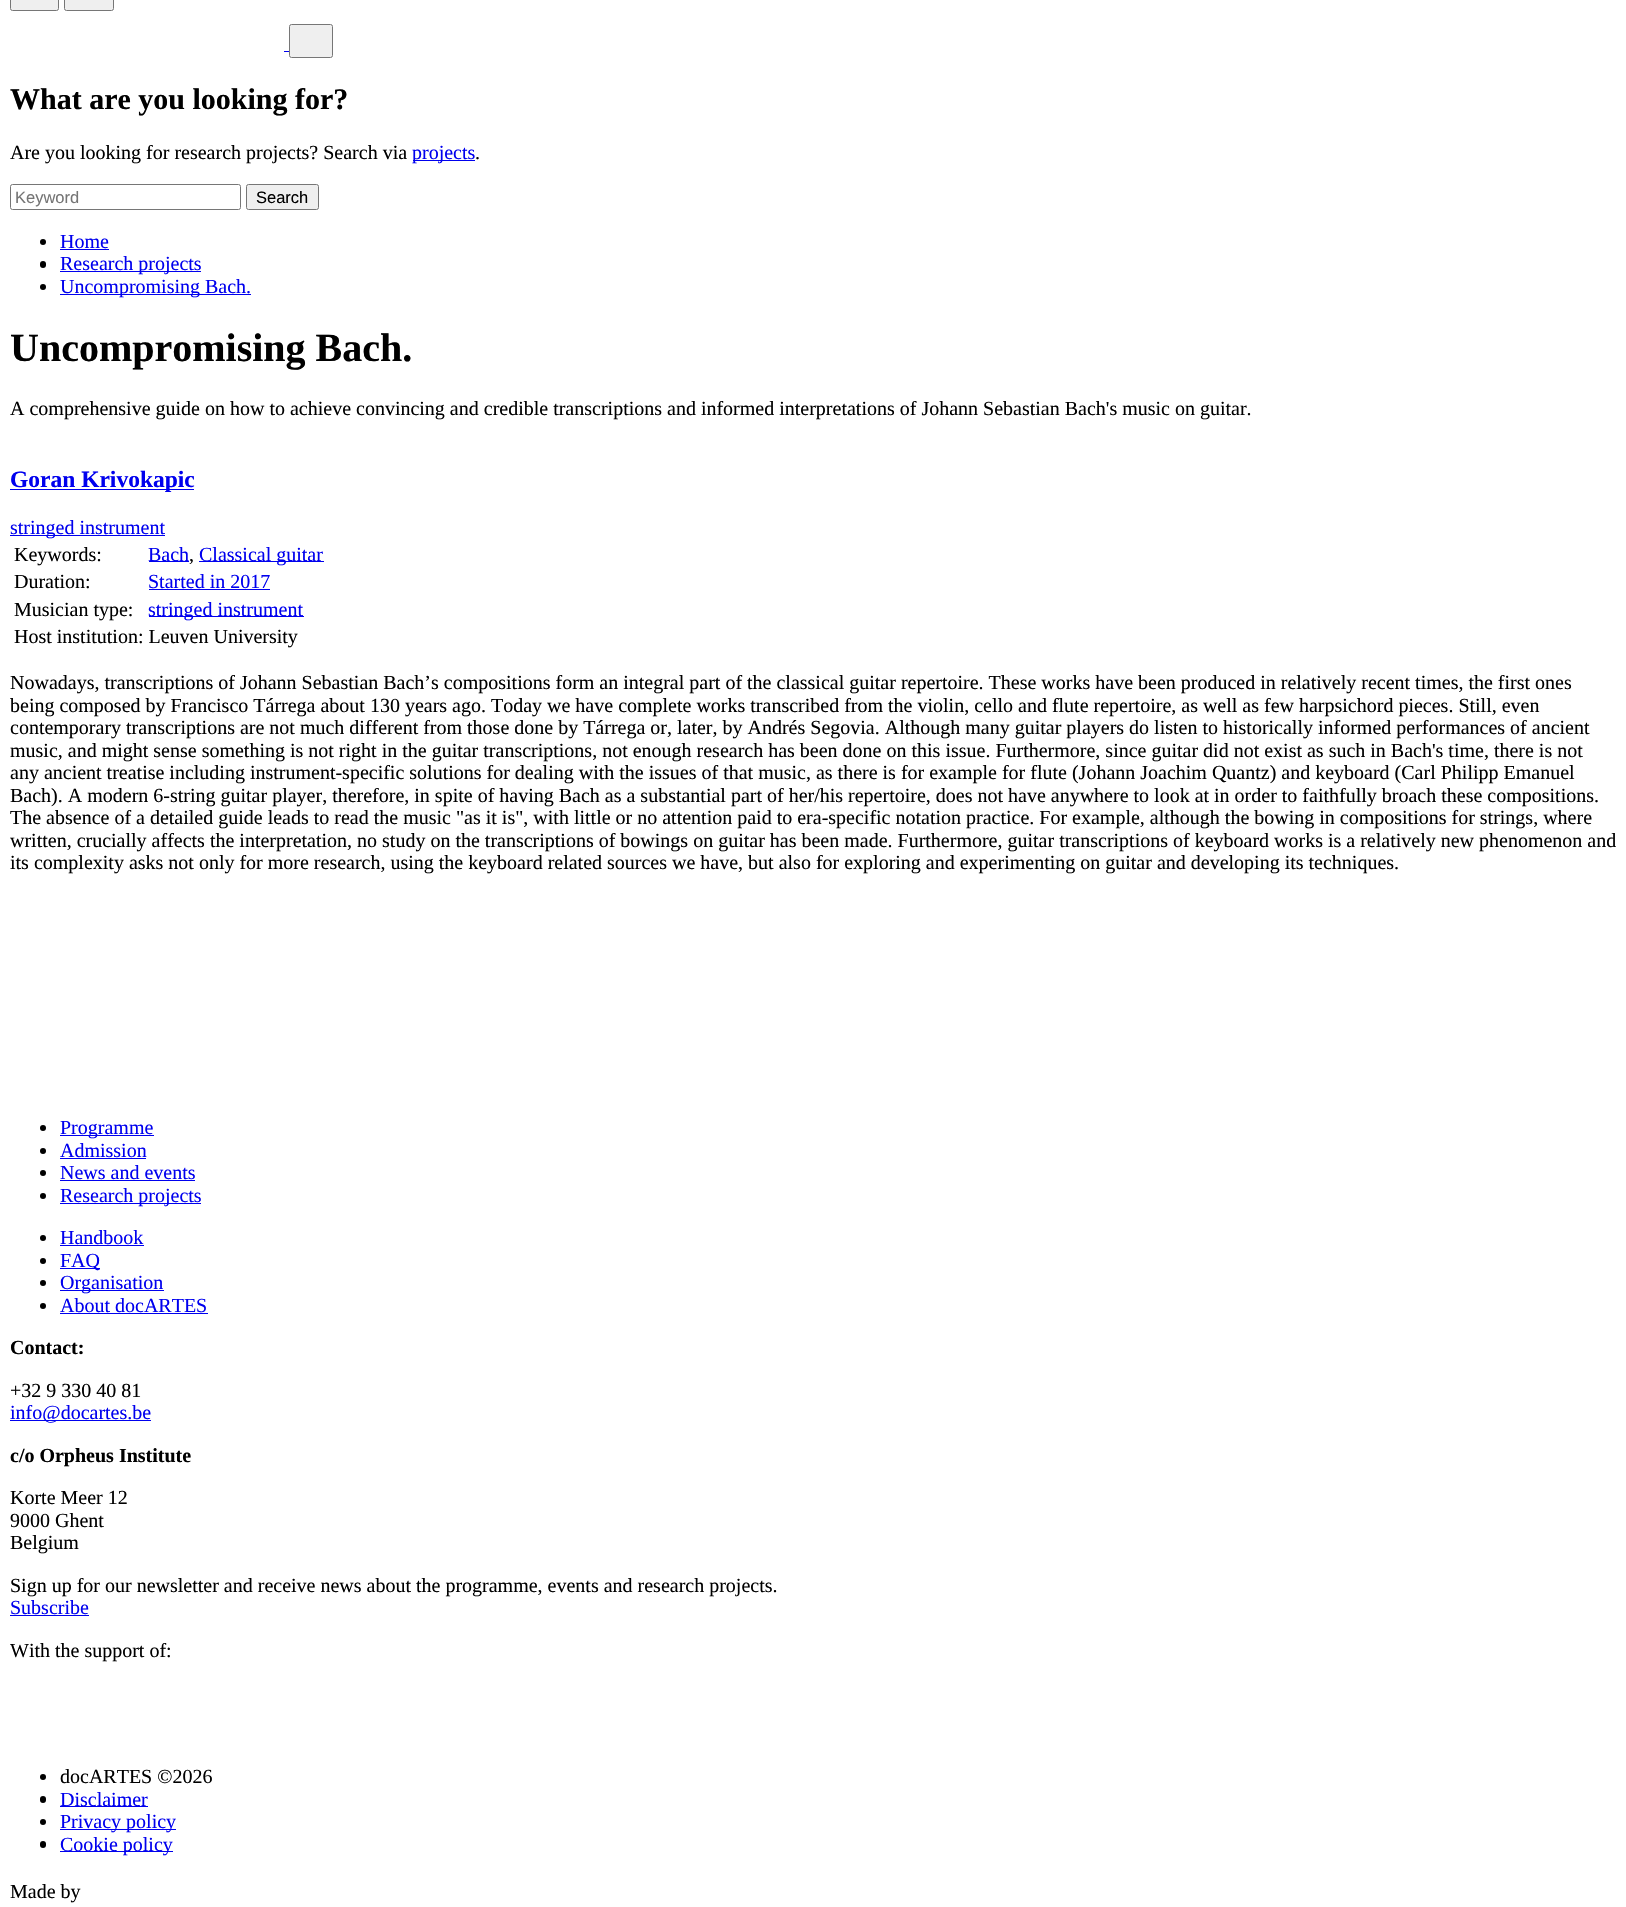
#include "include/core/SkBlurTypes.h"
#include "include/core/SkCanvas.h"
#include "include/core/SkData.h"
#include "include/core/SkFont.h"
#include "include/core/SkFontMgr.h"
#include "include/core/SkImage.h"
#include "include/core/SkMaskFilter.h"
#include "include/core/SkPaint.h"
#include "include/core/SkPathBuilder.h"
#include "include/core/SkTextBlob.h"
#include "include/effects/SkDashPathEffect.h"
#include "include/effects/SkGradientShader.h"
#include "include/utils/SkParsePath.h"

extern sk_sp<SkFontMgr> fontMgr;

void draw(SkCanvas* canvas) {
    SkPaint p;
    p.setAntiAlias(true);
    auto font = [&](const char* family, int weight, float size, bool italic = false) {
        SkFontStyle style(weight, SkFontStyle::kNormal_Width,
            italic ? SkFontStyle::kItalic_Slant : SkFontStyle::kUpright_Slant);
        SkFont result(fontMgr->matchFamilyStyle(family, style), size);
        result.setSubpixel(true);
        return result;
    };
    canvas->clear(0xFFFFFFFF);
    p.setColor(0xFFEFEFEF);
    canvas->drawRoundRect(SkRect::MakeLTRB(10.5f, -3.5f, 58.5f, 10.5f), 2, 2, p);
    p.setStyle(SkPaint::kStroke_Style);
    p.setStrokeWidth(1);
    p.setColor(0xFF767676);
    canvas->drawRoundRect(SkRect::MakeLTRB(10.5f, -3.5f, 58.5f, 10.5f), 2, 2, p);
    p.setStyle(SkPaint::kFill_Style);
    p.setColor(0xFFEFEFEF);
    canvas->drawRoundRect(SkRect::MakeLTRB(64.5f, -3.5f, 113.5f, 10.5f), 2, 2, p);
    p.setStyle(SkPaint::kStroke_Style);
    p.setColor(0xFF767676);
    canvas->drawRoundRect(SkRect::MakeLTRB(64.5f, -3.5f, 113.5f, 10.5f), 2, 2, p);
    p.setStyle(SkPaint::kFill_Style);
    p.setColor(0xFF0000EE);
    canvas->drawRect(SkRect::MakeLTRB(284, 51, 289, 52), p);
    p.setColor(0xFFEFEFEF);
    canvas->drawRoundRect(SkRect::MakeLTRB(289.5f, 24.5f, 332.5f, 57.5f), 2, 2, p);
    p.setStyle(SkPaint::kStroke_Style);
    p.setColor(0xFF767676);
    canvas->drawRoundRect(SkRect::MakeLTRB(289.5f, 24.5f, 332.5f, 57.5f), 2, 2, p);
    auto font1 = font("Liberation Serif", 700, 30);
    p.setStyle(SkPaint::kFill_Style);
    p.setColor(0xFF000000);
    canvas->drawString("What are you looking for?", 10, 109, font1, p);
    auto font2 = font("Liberation Serif", 400, 20);
    canvas->drawString("Are you looking for research projects? Search via", 10, 159, font2, p);
    p.setColor(0xFF0000EE);
    canvas->drawRect(SkRect::MakeLTRB(413, 160, 475, 161), p);
    canvas->drawString("projects", 412, 159, font2, p);
    p.setColor(0xFF000000);
    canvas->drawString(".", 475, 159, font2, p);
    p.setStyle(SkPaint::kStroke_Style);
    p.setColor(0xFF767676);
    canvas->drawRoundRect(SkRect::MakeLTRB(10.5f, 184.5f, 240.5f, 209.5f), 2, 2, p);
    auto font3 = font("Liberation Sans", 400, 16.5f);
    p.setStyle(SkPaint::kFill_Style);
    p.setColor(0xFF757575);
    canvas->drawString("Keyword", 15, 203, font3, p);
    p.setColor(0xFFEFEFEF);
    canvas->drawRoundRect(SkRect::MakeLTRB(246.5f, 184.5f, 318.5f, 209.5f), 2, 2, p);
    p.setStyle(SkPaint::kStroke_Style);
    p.setColor(0xFF767676);
    canvas->drawRoundRect(SkRect::MakeLTRB(246.5f, 184.5f, 318.5f, 209.5f), 2, 2, p);
    p.setStyle(SkPaint::kFill_Style);
    p.setColor(0xFF000000);
    canvas->drawString("Search", 256, 203, font3, p);
    canvas->drawCircle(43, 242, 3, p);
    p.setColor(0xFF0000EE);
    canvas->drawString("Home", 60, 248, font2, p);
    canvas->drawRect(SkRect::MakeLTRB(60, 249, 109, 250), p);
    p.setColor(0xFF000000);
    canvas->drawRoundRect(SkRect::MakeLTRB(40, 261, 46, 268), 3, 3, p);
    p.setColor(0xFF0000EE);
    canvas->drawRect(SkRect::MakeLTRB(60, 271, 201, 272), p);
    canvas->drawString("Research projects", 60, 270, font2, p);
    p.setColor(0xFF000000);
    canvas->drawCircle(43, 287, 3, p);
    p.setColor(0xFF0000EE);
    canvas->drawRect(SkRect::MakeLTRB(60, 294, 251, 295), p);
    canvas->drawString("Uncompromising Bach.", 60, 293, font2, p);
    auto font4 = font("Liberation Serif", 700, 40);
    p.setColor(0xFF000000);
    canvas->drawString("Uncompromising Bach.", 10, 361, font4, p);
    canvas->drawString("A comprehensive guide on how to achieve convincing and credible transcriptions and informed interpretations of Johann Sebastian Bach's music on guitar.", 10, 415, font2, p);
    p.setColor(0xFF0000EE);
    canvas->drawRect(SkRect::MakeLTRB(10, 489, 194, 490), p);
    auto font5 = font("Liberation Serif", 700, 23.5f);
    canvas->drawString("Goran Krivokapic", 10, 487, font5, p);
    canvas->drawRect(SkRect::MakeLTRB(10, 535, 165, 536), p);
    canvas->drawString("stringed instrument", 10, 534, font2, p);
    p.setColor(0xFF000000);
    canvas->drawString("Keywords:", 14, 561, font2, p);
    p.setColor(0xFF0000EE);
    canvas->drawRect(SkRect::MakeLTRB(149, 561, 189, 562), p);
    canvas->drawString("Bach", 148, 561, font2, p);
    p.setColor(0xFF000000);
    canvas->drawString(",", 189, 561, font2, p);
    p.setColor(0xFF0000EE);
    canvas->drawRect(SkRect::MakeLTRB(199, 561, 324, 562), p);
    canvas->drawString("Classical guitar", 199, 561, font2, p);
    p.setColor(0xFF000000);
    canvas->drawString("Duration:", 14, 588, font2, p);
    p.setColor(0xFF0000EE);
    canvas->drawString("Started in 2017", 148, 588, font2, p);
    canvas->drawRect(SkRect::MakeLTRB(149, 589, 270, 590), p);
    p.setColor(0xFF000000);
    canvas->drawString("Musician type:", 14, 616, font2, p);
    p.setColor(0xFF0000EE);
    canvas->drawRect(SkRect::MakeLTRB(149, 616, 304, 617), p);
    canvas->drawString("stringed instrument", 148, 616, font2, p);
    p.setColor(0xFF000000);
    {
        const struct { const char* s; float x, y; } items[] = {
            {"Host institution: Leuven University", 14, 643},
            {"Nowadays, transcriptions of Johann Sebastian Bach’s compositions form an integral part of the classical guitar repertoire. These works have been produced in relatively recent times, the first ones", 10, 689},
            {"being composed by Francisco Tárrega about 130 years ago. Today we have complete works transcribed from the violin, cello and flute repertoire, as well as few harpsichord pieces. Still, even", 10, 712},
            {"contemporary transcriptions are not much different from those done by Tárrega or, later, by Andrés Segovia. Although many guitar players do listen to historically informed performances of ancient", 10, 734},
            {"music, and might sense something is not right in the guitar transcriptions, not enough research has been done on this issue. Furthermore, since guitar did not exist as such in Bach's time, there is not", 10, 757},
            {"any ancient treatise including instrument-specific solutions for dealing with the issues of that music, as there is for example for flute (Johann Joachim Quantz) and keyboard (Carl Philipp Emanuel", 10, 779},
            {"Bach). A modern 6-string guitar player, therefore, in spite of having Bach as a substantial part of her/his repertoire, does not have anywhere to look at in order to faithfully broach these compositions.", 10, 802},
            {"The absence of a detailed guide leads to read the music \"as it is\", with little or no attention paid to era-specific notation practice. For example, although the bowing in compositions for strings, where", 10, 824},
            {"written, crucially affects the interpretation, no study on the transcriptions of bowings on guitar has been made. Furthermore, guitar transcriptions of keyboard works is a relatively new phenomenon and", 10, 847},
            {"its complexity asks not only for more research, using the keyboard related sources we have, but also for exploring and experimenting on guitar and developing its techniques.", 10, 869},
        };
        for (auto [s, x, y] : items) {
            canvas->drawString(s, x, y, font2, p);
        }
    }
    canvas->drawCircle(43, 1128, 3, p);
    p.setColor(0xFF0000EE);
    canvas->drawRect(SkRect::MakeLTRB(60, 1135, 154, 1136), p);
    canvas->drawString("Programme", 60, 1134, font2, p);
    p.setColor(0xFF000000);
    canvas->drawCircle(43, 1151, 3, p);
    p.setColor(0xFF0000EE);
    canvas->drawString("Admission", 60, 1157, font2, p);
    canvas->drawRect(SkRect::MakeLTRB(60, 1158, 146, 1159), p);
    p.setColor(0xFF000000);
    canvas->drawCircle(43, 1173, 3, p);
    p.setColor(0xFF0000EE);
    canvas->drawString("News and events", 60, 1179, font2, p);
    canvas->drawRect(SkRect::MakeLTRB(60, 1180, 195, 1181), p);
    p.setColor(0xFF000000);
    canvas->drawCircle(43, 1196, 3, p);
    p.setColor(0xFF0000EE);
    canvas->drawRect(SkRect::MakeLTRB(60, 1203, 201, 1204), p);
    canvas->drawString("Research projects", 60, 1202, font2, p);
    p.setColor(0xFF000000);
    canvas->drawCircle(43, 1238, 3, p);
    p.setColor(0xFF0000EE);
    canvas->drawString("Handbook", 60, 1244, font2, p);
    canvas->drawRect(SkRect::MakeLTRB(60, 1245, 144, 1246), p);
    p.setColor(0xFF000000);
    canvas->drawCircle(43, 1261, 3, p);
    p.setColor(0xFF0000EE);
    canvas->drawRect(SkRect::MakeLTRB(60, 1268, 100, 1269), p);
    canvas->drawString("FAQ", 60, 1267, font2, p);
    p.setColor(0xFF000000);
    canvas->drawCircle(43, 1283, 3, p);
    p.setColor(0xFF0000EE);
    canvas->drawRect(SkRect::MakeLTRB(60, 1290, 164, 1291), p);
    canvas->drawString("Organisation", 60, 1289, font2, p);
    p.setColor(0xFF000000);
    canvas->drawCircle(43, 1306, 3, p);
    p.setColor(0xFF0000EE);
    canvas->drawString("About docARTES", 60, 1312, font2, p);
    canvas->drawRect(SkRect::MakeLTRB(60, 1313, 208, 1314), p);
    auto font6 = font("Liberation Serif", 700, 20);
    p.setColor(0xFF000000);
    canvas->drawString("Contact:", 10, 1354, font6, p);
    canvas->drawString("+32 9 330 40 81", 10, 1397, font2, p);
    p.setColor(0xFF0000EE);
    canvas->drawRect(SkRect::MakeLTRB(10, 1420, 151, 1421), p);
    canvas->drawString("info@docartes.be", 10, 1419, font2, p);
    p.setColor(0xFF000000);
    canvas->drawString("c/o Orpheus Institute", 10, 1462, font6, p);
    {
        const struct { const char* s; float x, y; } items[] = {
            {"Korte Meer 12", 10, 1504},
            {"9000 Ghent", 10, 1527},
            {"Belgium", 10, 1549},
            {"Sign up for our newsletter and receive news about the programme, events and research projects.", 10, 1592},
        };
        for (auto [s, x, y] : items) {
            canvas->drawString(s, x, y, font2, p);
        }
    }
    p.setColor(0xFF0000EE);
    canvas->drawString("Subscribe", 10, 1614, font2, p);
    canvas->drawRect(SkRect::MakeLTRB(10, 1615, 89, 1616), p);
    p.setColor(0xFF000000);
    canvas->drawString("With the support of:", 10, 1657, font2, p);
    canvas->drawCircle(43, 1777, 3, p);
    canvas->drawString("docARTES ©2026", 60, 1783, font2, p);
    canvas->drawRoundRect(SkRect::MakeLTRB(40, 1796, 46, 1803), 3, 3, p);
    p.setColor(0xFF0000EE);
    canvas->drawRect(SkRect::MakeLTRB(60, 1806, 148, 1807), p);
    canvas->drawString("Disclaimer", 60, 1806, font2, p);
    p.setColor(0xFF000000);
    canvas->drawCircle(43, 1822, 3, p);
    p.setColor(0xFF0000EE);
    canvas->drawRect(SkRect::MakeLTRB(60, 1829, 176, 1830), p);
    canvas->drawString("Privacy policy", 60, 1828, font2, p);
    p.setColor(0xFF000000);
    canvas->drawRoundRect(SkRect::MakeLTRB(40, 1841, 46, 1848), 3, 3, p);
    p.setColor(0xFF0000EE);
    canvas->drawRect(SkRect::MakeLTRB(60, 1851, 173, 1852), p);
    canvas->drawString("Cookie policy", 60, 1851, font2, p);
    p.setColor(0xFF000000);
    canvas->drawString("Made by", 10, 1898, font2, p);
}
